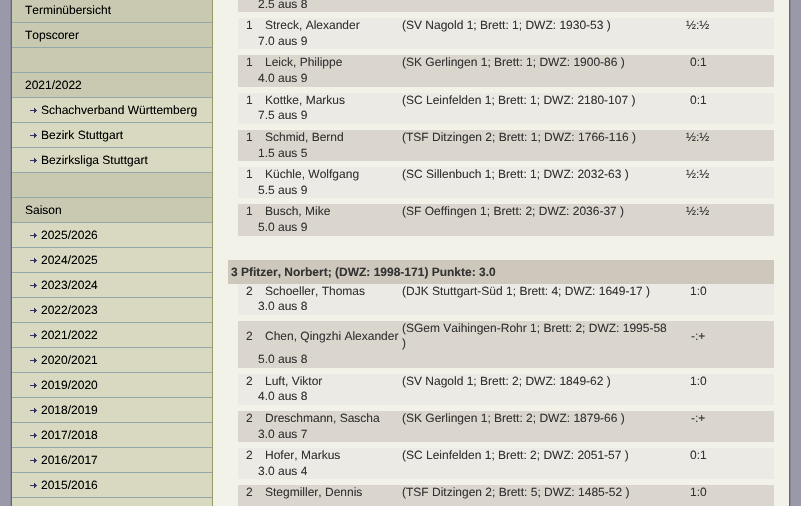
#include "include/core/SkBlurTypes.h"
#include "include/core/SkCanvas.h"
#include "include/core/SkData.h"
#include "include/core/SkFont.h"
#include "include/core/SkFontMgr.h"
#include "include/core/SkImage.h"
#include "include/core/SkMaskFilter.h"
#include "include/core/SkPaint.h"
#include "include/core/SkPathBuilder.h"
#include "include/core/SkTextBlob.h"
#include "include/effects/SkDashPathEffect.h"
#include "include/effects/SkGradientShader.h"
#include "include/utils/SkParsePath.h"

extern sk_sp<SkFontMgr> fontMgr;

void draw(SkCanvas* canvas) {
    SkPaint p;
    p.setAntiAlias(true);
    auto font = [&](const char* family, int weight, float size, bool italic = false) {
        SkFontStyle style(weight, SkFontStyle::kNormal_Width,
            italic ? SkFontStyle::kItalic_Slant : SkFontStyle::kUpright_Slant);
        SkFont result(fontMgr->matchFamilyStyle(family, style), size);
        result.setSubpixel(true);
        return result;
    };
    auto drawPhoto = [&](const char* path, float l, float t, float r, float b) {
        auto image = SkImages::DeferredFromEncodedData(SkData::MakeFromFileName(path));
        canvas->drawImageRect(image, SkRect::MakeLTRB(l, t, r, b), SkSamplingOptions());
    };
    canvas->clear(0xFF9999AA);
    p.setStyle(SkPaint::kStroke_Style);
    p.setStrokeWidth(1);
    p.setColor(0xFF888899);
    canvas->drawRect(SkRect::MakeLTRB(10.5f, -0.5f, 790.5f, 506.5f), p);
    p.setStyle(SkPaint::kFill_Style);
    p.setColor(0xFF666677);
    canvas->drawRect(SkRect::MakeLTRB(11, 0, 790, 506), p);
    p.setColor(0xFFC9C9B1);
    canvas->drawRect(SkRect::MakeLTRB(12, 0, 212, 222), p);
    auto font1 = font("Liberation Sans", 400, 12);
    p.setColor(0xFF000000);
    canvas->drawString("Terminübersicht", 25, 14, font1, p);
    p.setColor(0xFF94A7AB);
    canvas->drawRect(SkRect::MakeLTRB(12, 22, 212, 23), p);
    p.setColor(0xFF000000);
    canvas->drawString("Topscorer", 25, 39, font1, p);
    p.setColor(0xFF94A7AB);
    canvas->drawRect(SkRect::MakeLTRB(12, 47, 212, 48), p);
    canvas->drawRect(SkRect::MakeLTRB(12, 72, 212, 73), p);
    p.setColor(0xFF000000);
    canvas->drawString("2021/2022", 25, 89, font1, p);
    p.setColor(0xFFD9D9C1);
    canvas->drawRect(SkRect::MakeLTRB(12, 98, 212, 122), p);
    drawPhoto("media/1.png", 30, 108, 37, 113);
    p.setColor(0xFF94A7AB);
    canvas->drawRect(SkRect::MakeLTRB(12, 97, 212, 98), p);
    p.setColor(0xFF000000);
    canvas->drawString("Schachverband Württemberg", 41, 114, font1, p);
    p.setColor(0xFFD9D9C1);
    canvas->drawRect(SkRect::MakeLTRB(12, 123, 212, 147), p);
    drawPhoto("media/1.png", 30, 133, 37, 138);
    p.setColor(0xFF94A7AB);
    canvas->drawRect(SkRect::MakeLTRB(12, 122, 212, 123), p);
    p.setColor(0xFF000000);
    canvas->drawString("Bezirk Stuttgart", 41, 139, font1, p);
    p.setColor(0xFFD9D9C1);
    canvas->drawRect(SkRect::MakeLTRB(12, 148, 212, 172), p);
    drawPhoto("media/1.png", 30, 158, 37, 163);
    p.setColor(0xFF94A7AB);
    canvas->drawRect(SkRect::MakeLTRB(12, 147, 212, 148), p);
    p.setColor(0xFF000000);
    canvas->drawString("Bezirksliga Stuttgart", 41, 164, font1, p);
    p.setColor(0xFF94A7AB);
    canvas->drawRect(SkRect::MakeLTRB(12, 172, 212, 173), p);
    canvas->drawRect(SkRect::MakeLTRB(12, 197, 212, 198), p);
    p.setColor(0xFF000000);
    canvas->drawString("Saison", 25, 214, font1, p);
    p.setColor(0xFFD9D9C1);
    canvas->drawRect(SkRect::MakeLTRB(12, 223, 212, 247), p);
    drawPhoto("media/1.png", 30, 233, 37, 238);
    p.setColor(0xFF94A7AB);
    canvas->drawRect(SkRect::MakeLTRB(12, 222, 212, 223), p);
    p.setColor(0xFF000000);
    canvas->drawString("2025/2026", 41, 239, font1, p);
    p.setColor(0xFFD9D9C1);
    canvas->drawRect(SkRect::MakeLTRB(12, 248, 212, 272), p);
    drawPhoto("media/1.png", 30, 258, 37, 263);
    p.setColor(0xFF94A7AB);
    canvas->drawRect(SkRect::MakeLTRB(12, 247, 212, 248), p);
    p.setColor(0xFF000000);
    canvas->drawString("2024/2025", 41, 264, font1, p);
    p.setColor(0xFFD9D9C1);
    canvas->drawRect(SkRect::MakeLTRB(12, 273, 212, 297), p);
    drawPhoto("media/1.png", 30, 283, 37, 288);
    p.setColor(0xFF94A7AB);
    canvas->drawRect(SkRect::MakeLTRB(12, 272, 212, 273), p);
    p.setColor(0xFF000000);
    canvas->drawString("2023/2024", 41, 289, font1, p);
    p.setColor(0xFFD9D9C1);
    canvas->drawRect(SkRect::MakeLTRB(12, 298, 212, 322), p);
    drawPhoto("media/1.png", 30, 308, 37, 313);
    p.setColor(0xFF94A7AB);
    canvas->drawRect(SkRect::MakeLTRB(12, 297, 212, 298), p);
    p.setColor(0xFF000000);
    canvas->drawString("2022/2023", 41, 314, font1, p);
    p.setColor(0xFFD9D9C1);
    canvas->drawRect(SkRect::MakeLTRB(12, 323, 212, 347), p);
    drawPhoto("media/1.png", 30, 333, 37, 338);
    p.setColor(0xFF94A7AB);
    canvas->drawRect(SkRect::MakeLTRB(12, 322, 212, 323), p);
    p.setColor(0xFF000000);
    canvas->drawString("2021/2022", 41, 339, font1, p);
    p.setColor(0xFFD9D9C1);
    canvas->drawRect(SkRect::MakeLTRB(12, 348, 212, 372), p);
    drawPhoto("media/1.png", 30, 358, 37, 363);
    p.setColor(0xFF94A7AB);
    canvas->drawRect(SkRect::MakeLTRB(12, 347, 212, 348), p);
    p.setColor(0xFF000000);
    canvas->drawString("2020/2021", 41, 364, font1, p);
    p.setColor(0xFFD9D9C1);
    canvas->drawRect(SkRect::MakeLTRB(12, 373, 212, 397), p);
    drawPhoto("media/1.png", 30, 383, 37, 388);
    p.setColor(0xFF94A7AB);
    canvas->drawRect(SkRect::MakeLTRB(12, 372, 212, 373), p);
    p.setColor(0xFF000000);
    canvas->drawString("2019/2020", 41, 389, font1, p);
    p.setColor(0xFFD9D9C1);
    canvas->drawRect(SkRect::MakeLTRB(12, 398, 212, 422), p);
    drawPhoto("media/1.png", 30, 408, 37, 413);
    p.setColor(0xFF94A7AB);
    canvas->drawRect(SkRect::MakeLTRB(12, 397, 212, 398), p);
    p.setColor(0xFF000000);
    canvas->drawString("2018/2019", 41, 414, font1, p);
    p.setColor(0xFFD9D9C1);
    canvas->drawRect(SkRect::MakeLTRB(12, 423, 212, 447), p);
    drawPhoto("media/1.png", 30, 433, 37, 438);
    p.setColor(0xFF94A7AB);
    canvas->drawRect(SkRect::MakeLTRB(12, 422, 212, 423), p);
    p.setColor(0xFF000000);
    canvas->drawString("2017/2018", 41, 439, font1, p);
    p.setColor(0xFFD9D9C1);
    canvas->drawRect(SkRect::MakeLTRB(12, 448, 212, 472), p);
    drawPhoto("media/1.png", 30, 458, 37, 463);
    p.setColor(0xFF94A7AB);
    canvas->drawRect(SkRect::MakeLTRB(12, 447, 212, 448), p);
    p.setColor(0xFF000000);
    canvas->drawString("2016/2017", 41, 464, font1, p);
    p.setColor(0xFFD9D9C1);
    canvas->drawRect(SkRect::MakeLTRB(12, 473, 212, 497), p);
    drawPhoto("media/1.png", 30, 483, 37, 488);
    p.setColor(0xFF94A7AB);
    canvas->drawRect(SkRect::MakeLTRB(12, 472, 212, 473), p);
    p.setColor(0xFF000000);
    canvas->drawString("2015/2016", 41, 489, font1, p);
    {
        const struct { float l, t, r, b; SkColor color; } items[] = {
            {12, 498, 212, 506, 0xFFD9D9C1},
            {12, 497, 212, 498, 0xFF94A7AB},
            {213, 0, 789, 506, 0xFFF2F2E8},
            {212, 0, 213, 506, 0xFF999966},
            {238, 0, 774, 12, 0xFFDAD5CD},
        };
        for (auto [l, t, r, b, color] : items) {
            p.setColor(color);
            canvas->drawRect(SkRect::MakeLTRB(l, t, r, b), p);
        }
    }
    p.setColor(0xFF333333);
    canvas->drawString("2.5 aus 8", 258, 8, font1, p);
    p.setColor(0xFFECEAE5);
    canvas->drawRect(SkRect::MakeLTRB(238, 18, 774, 49), p);
    p.setColor(0xFF333333);
    {
        const struct { const char* s; float x, y; } items[] = {
            {"1", 246, 29},
            {"Streck, Alexander", 265, 29},
            {"(SV Nagold 1; Brett: 1; DWZ: 1930-53 )", 402, 29},
            {"½:½", 686, 29},
            {"7.0 aus 9", 258, 45},
        };
        for (auto [s, x, y] : items) {
            canvas->drawString(s, x, y, font1, p);
        }
    }
    p.setColor(0xFFDAD5CD);
    canvas->drawRect(SkRect::MakeLTRB(238, 55, 774, 87), p);
    p.setColor(0xFF333333);
    {
        const struct { const char* s; float x, y; } items[] = {
            {"1", 246, 66},
            {"Leick, Philippe", 265, 66},
            {"(SK Gerlingen 1; Brett: 1; DWZ: 1900-86 )", 402, 66},
            {"0:1", 690, 66},
            {"4.0 aus 9", 258, 82},
        };
        for (auto [s, x, y] : items) {
            canvas->drawString(s, x, y, font1, p);
        }
    }
    p.setColor(0xFFECEAE5);
    canvas->drawRect(SkRect::MakeLTRB(238, 93, 774, 124), p);
    p.setColor(0xFF333333);
    {
        const struct { const char* s; float x, y; } items[] = {
            {"1", 246, 104},
            {"Kottke, Markus", 265, 104},
            {"(SC Leinfelden 1; Brett: 1; DWZ: 2180-107 )", 402, 104},
            {"0:1", 690, 104},
            {"7.5 aus 9", 258, 119},
        };
        for (auto [s, x, y] : items) {
            canvas->drawString(s, x, y, font1, p);
        }
    }
    p.setColor(0xFFDAD5CD);
    canvas->drawRect(SkRect::MakeLTRB(238, 130, 774, 161), p);
    p.setColor(0xFF333333);
    {
        const struct { const char* s; float x, y; } items[] = {
            {"1", 246, 141},
            {"Schmid, Bernd", 265, 141},
            {"(TSF Ditzingen 2; Brett: 1; DWZ: 1766-116 )", 402, 141},
            {"½:½", 686, 141},
            {"1.5 aus 5", 258, 157},
        };
        for (auto [s, x, y] : items) {
            canvas->drawString(s, x, y, font1, p);
        }
    }
    p.setColor(0xFFECEAE5);
    canvas->drawRect(SkRect::MakeLTRB(238, 167, 774, 198), p);
    p.setColor(0xFF333333);
    {
        const struct { const char* s; float x, y; } items[] = {
            {"1", 246, 178},
            {"Küchle, Wolfgang", 265, 178},
            {"(SC Sillenbuch 1; Brett: 1; DWZ: 2032-63 )", 402, 178},
            {"½:½", 686, 178},
            {"5.5 aus 9", 258, 194},
        };
        for (auto [s, x, y] : items) {
            canvas->drawString(s, x, y, font1, p);
        }
    }
    p.setColor(0xFFDAD5CD);
    canvas->drawRect(SkRect::MakeLTRB(238, 204, 774, 236), p);
    p.setColor(0xFF333333);
    {
        const struct { const char* s; float x, y; } items[] = {
            {"1", 246, 215},
            {"Busch, Mike", 265, 215},
            {"(SF Oeffingen 1; Brett: 2; DWZ: 2036-37 )", 402, 215},
            {"½:½", 686, 215},
            {"5.0 aus 9", 258, 231},
        };
        for (auto [s, x, y] : items) {
            canvas->drawString(s, x, y, font1, p);
        }
    }
    p.setColor(0xFFCDC7BC);
    canvas->drawRect(SkRect::MakeLTRB(228, 260, 774, 284), p);
    auto font2 = font("Liberation Sans", 700, 12);
    p.setColor(0xFF333333);
    canvas->drawString("3 Pfitzer, Norbert; (DWZ: 1998-171) Punkte: 3.0", 231, 276, font2, p);
    p.setColor(0xFFECEAE5);
    canvas->drawRect(SkRect::MakeLTRB(238, 284, 774, 315), p);
    p.setColor(0xFF333333);
    {
        const struct { const char* s; float x, y; } items[] = {
            {"2", 246, 295},
            {"Schoeller, Thomas", 265, 295},
            {"(DJK Stuttgart-Süd 1; Brett: 4; DWZ: 1649-17 )", 402, 295},
            {"1:0", 690, 295},
            {"3.0 aus 8", 258, 310},
        };
        for (auto [s, x, y] : items) {
            canvas->drawString(s, x, y, font1, p);
        }
    }
    p.setColor(0xFFDAD5CD);
    canvas->drawRect(SkRect::MakeLTRB(238, 321, 774, 368), p);
    p.setColor(0xFF333333);
    {
        const struct { const char* s; float x, y; } items[] = {
            {"2", 246, 340},
            {"Chen, Qingzhi Alexander", 265, 340},
            {"(SGem Vaihingen-Rohr 1; Brett: 2; DWZ: 1995-58", 402, 332},
            {")", 402, 347},
            {"-:+", 691, 340},
            {"5.0 aus 8", 258, 363},
        };
        for (auto [s, x, y] : items) {
            canvas->drawString(s, x, y, font1, p);
        }
    }
    p.setColor(0xFFECEAE5);
    canvas->drawRect(SkRect::MakeLTRB(238, 374, 774, 405), p);
    p.setColor(0xFF333333);
    {
        const struct { const char* s; float x, y; } items[] = {
            {"2", 246, 385},
            {"Luft, Viktor", 265, 385},
            {"(SV Nagold 1; Brett: 2; DWZ: 1849-62 )", 402, 385},
            {"1:0", 690, 385},
            {"4.0 aus 8", 258, 400},
        };
        for (auto [s, x, y] : items) {
            canvas->drawString(s, x, y, font1, p);
        }
    }
    p.setColor(0xFFDAD5CD);
    canvas->drawRect(SkRect::MakeLTRB(238, 411, 774, 442), p);
    p.setColor(0xFF333333);
    {
        const struct { const char* s; float x, y; } items[] = {
            {"2", 246, 422},
            {"Dreschmann, Sascha", 265, 422},
            {"(SK Gerlingen 1; Brett: 2; DWZ: 1879-66 )", 402, 422},
            {"-:+", 691, 422},
            {"3.0 aus 7", 258, 438},
        };
        for (auto [s, x, y] : items) {
            canvas->drawString(s, x, y, font1, p);
        }
    }
    p.setColor(0xFFECEAE5);
    canvas->drawRect(SkRect::MakeLTRB(238, 448, 774, 479), p);
    p.setColor(0xFF333333);
    {
        const struct { const char* s; float x, y; } items[] = {
            {"2", 246, 459},
            {"Hofer, Markus", 265, 459},
            {"(SC Leinfelden 1; Brett: 2; DWZ: 2051-57 )", 402, 459},
            {"0:1", 690, 459},
            {"3.0 aus 4", 258, 475},
        };
        for (auto [s, x, y] : items) {
            canvas->drawString(s, x, y, font1, p);
        }
    }
    p.setColor(0xFFDAD5CD);
    canvas->drawRect(SkRect::MakeLTRB(238, 485, 774, 506), p);
    p.setColor(0xFF333333);
    {
        const struct { const char* s; float x, y; } items[] = {
            {"2", 246, 496},
            {"Stegmiller, Dennis", 265, 496},
            {"(TSF Ditzingen 2; Brett: 5; DWZ: 1485-52 )", 402, 496},
            {"1:0", 690, 496},
        };
        for (auto [s, x, y] : items) {
            canvas->drawString(s, x, y, font1, p);
        }
    }
}
